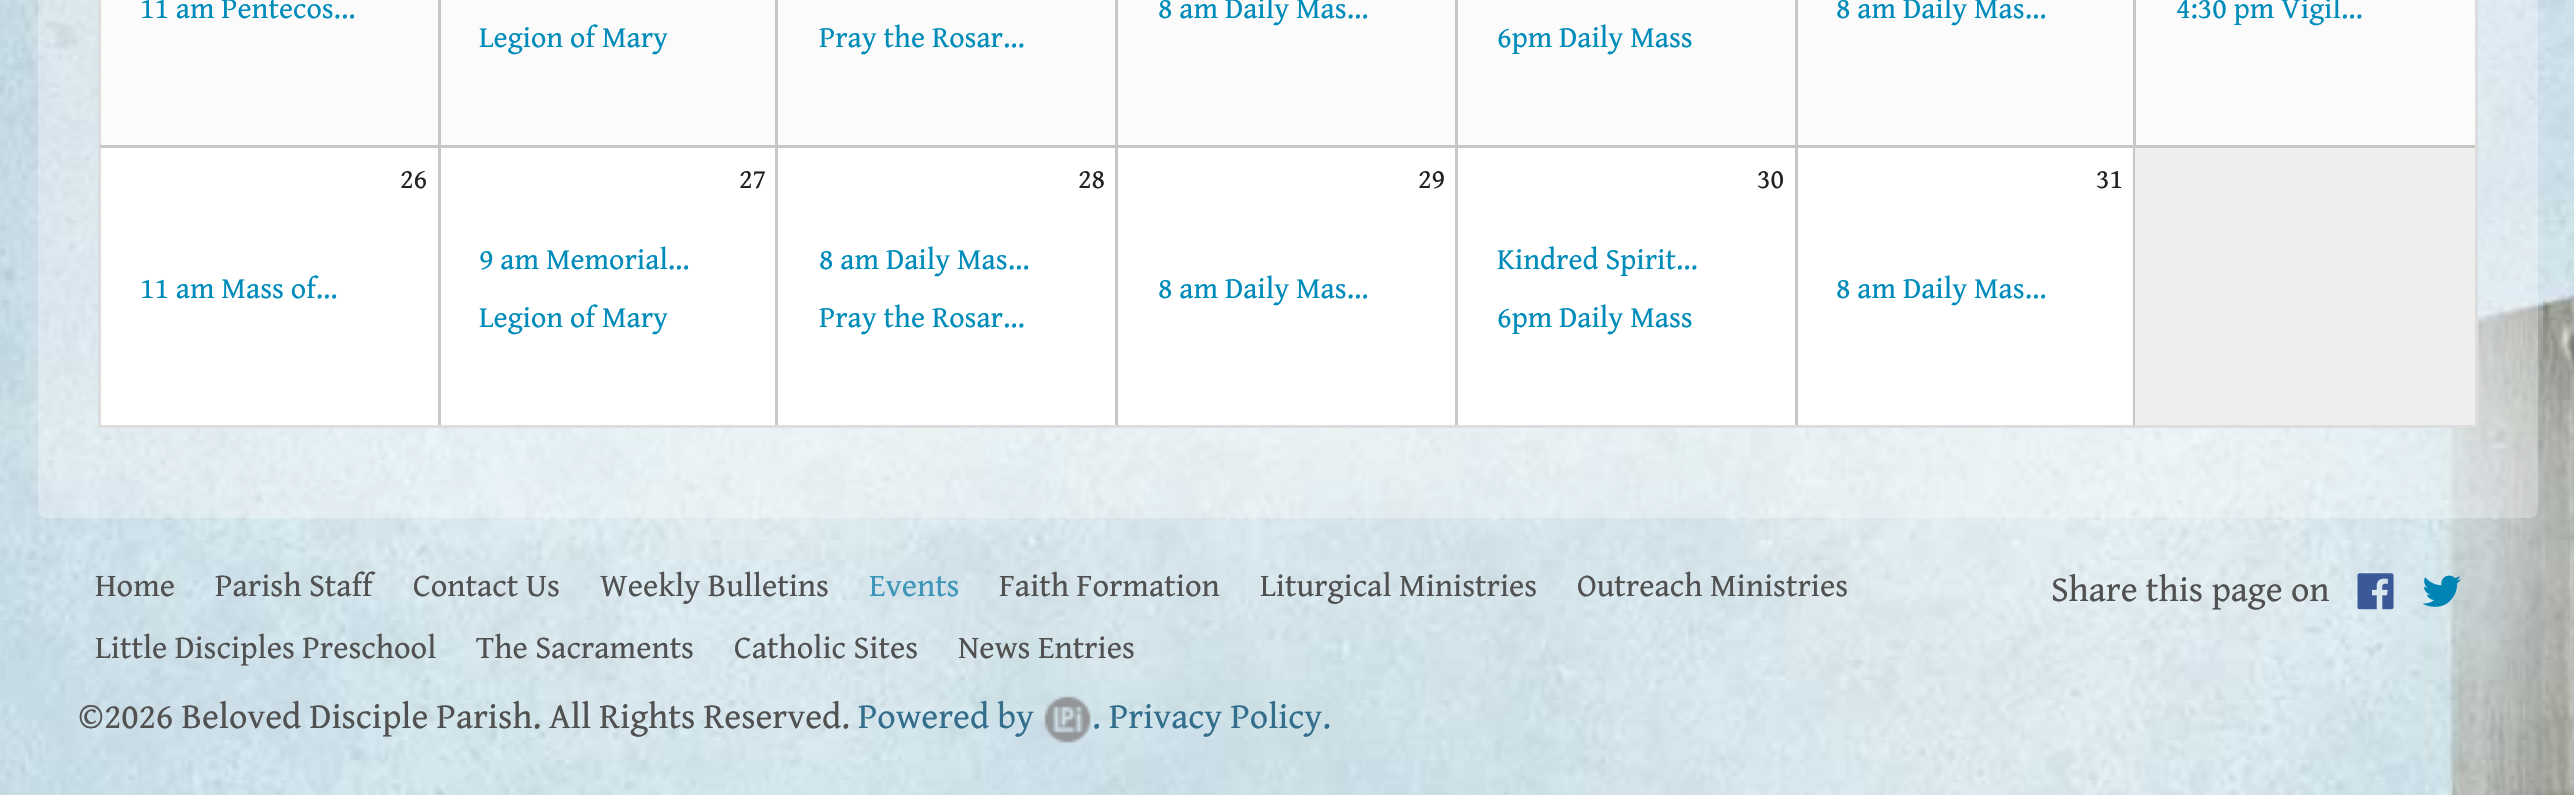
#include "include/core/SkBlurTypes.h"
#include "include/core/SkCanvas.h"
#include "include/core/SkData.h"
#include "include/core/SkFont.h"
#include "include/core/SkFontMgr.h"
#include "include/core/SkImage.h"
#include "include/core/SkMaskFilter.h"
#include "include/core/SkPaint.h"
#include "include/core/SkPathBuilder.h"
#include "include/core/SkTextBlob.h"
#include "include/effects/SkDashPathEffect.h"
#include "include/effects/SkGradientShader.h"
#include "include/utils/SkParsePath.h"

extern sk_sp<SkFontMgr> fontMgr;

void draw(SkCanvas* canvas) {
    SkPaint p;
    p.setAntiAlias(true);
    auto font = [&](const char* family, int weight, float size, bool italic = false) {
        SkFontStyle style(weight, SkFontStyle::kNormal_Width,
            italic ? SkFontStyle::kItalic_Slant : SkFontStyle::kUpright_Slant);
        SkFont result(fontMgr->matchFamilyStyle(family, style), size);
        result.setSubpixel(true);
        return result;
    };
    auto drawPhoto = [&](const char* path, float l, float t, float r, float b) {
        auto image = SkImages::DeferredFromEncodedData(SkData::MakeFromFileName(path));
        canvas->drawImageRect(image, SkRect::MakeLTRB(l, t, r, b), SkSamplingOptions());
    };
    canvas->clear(0xFFFFFFFF);
    drawPhoto("media/1.png", 0, 0, 2574, 795);
    p.setColor(0x4DFFFFFF);
    canvas->drawRoundRect(SkRect::MakeLTRB(38, -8, 2538, 518), 8, 8, p);
    p.setColor(0xFFFFFFFF);
    canvas->drawRect(SkRect::MakeLTRB(99.5f, -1.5f, 2476.5f, 426.5f), p);
    p.setStyle(SkPaint::kStroke_Style);
    p.setStrokeWidth(3);
    p.setColor(0xFFDDDDDD);
    canvas->drawRect(SkRect::MakeLTRB(99.5f, -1.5f, 2476.5f, 426.5f), p);
    p.setStyle(SkPaint::kFill_Style);
    p.setColor(0x33EAEAEA);
    canvas->drawRect(SkRect::MakeLTRB(101, 0, 2475, 145), p);
    p.setColor(0xFFC7C7C7);
    canvas->drawRect(SkRect::MakeLTRB(438, 0, 441, 145), p);
    auto font1 = font("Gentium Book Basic", 400, 30);
    p.setColor(0xFF008CBA);
    canvas->drawString("11 am Pentecos...", 140, 18, font1, p);
    p.setColor(0xFFC7C7C7);
    canvas->drawRect(SkRect::MakeLTRB(1455, 0, 1458, 145), p);
    p.setColor(0xFF008CBA);
    canvas->drawString("8 am Daily Mas...", 1158, 18, font1, p);
    p.setColor(0xFFC7C7C7);
    canvas->drawRect(SkRect::MakeLTRB(2133, 0, 2136, 145), p);
    p.setColor(0xFF008CBA);
    canvas->drawString("8 am Daily Mas...", 1836, 18, font1, p);
    canvas->drawString("4:30 pm Vigil...", 2176, 18, font1, p);
    p.setColor(0xFFC7C7C7);
    canvas->drawRect(SkRect::MakeLTRB(775, 0, 778, 145), p);
    p.setColor(0xFF008CBA);
    canvas->drawString("Legion of Mary", 479, 47, font1, p);
    p.setColor(0xFFC7C7C7);
    canvas->drawRect(SkRect::MakeLTRB(1115, 0, 1118, 145), p);
    p.setColor(0xFF008CBA);
    canvas->drawString("Pray the Rosar...", 819, 47, font1, p);
    p.setColor(0xFFC7C7C7);
    canvas->drawRect(SkRect::MakeLTRB(1795, 0, 1798, 145), p);
    p.setColor(0xFF008CBA);
    canvas->drawString("6pm Daily Mass", 1497, 47, font1, p);
    p.setColor(0xFFC7C7C7);
    canvas->drawRect(SkRect::MakeLTRB(100, 145, 440, 148), p);
    canvas->drawRect(SkRect::MakeLTRB(438, 145, 441, 425), p);
    auto font2 = font("Gentium Book Basic", 400, 28);
    p.setColor(0xFF222222);
    canvas->drawString("26", 400, 188, font2, p);
    p.setColor(0xFF008CBA);
    canvas->drawString("11 am Mass of...", 140, 298, font1, p);
    p.setColor(0xFFC7C7C7);
    canvas->drawRect(SkRect::MakeLTRB(440, 145, 2475, 148), p);
    canvas->drawRect(SkRect::MakeLTRB(775, 145, 778, 425), p);
    p.setColor(0xFF222222);
    canvas->drawString("27", 739, 188, font2, p);
    p.setColor(0xFF008CBA);
    canvas->drawString("9 am Memorial...", 479, 269, font1, p);
    canvas->drawString("Legion of Mary", 479, 327, font1, p);
    p.setColor(0xFFC7C7C7);
    canvas->drawRect(SkRect::MakeLTRB(1115, 145, 1118, 425), p);
    p.setColor(0xFF222222);
    canvas->drawString("28", 1078, 188, font2, p);
    p.setColor(0xFF008CBA);
    canvas->drawString("8 am Daily Mas...", 819, 269, font1, p);
    canvas->drawString("Pray the Rosar...", 819, 327, font1, p);
    p.setColor(0xFFC7C7C7);
    canvas->drawRect(SkRect::MakeLTRB(1455, 145, 1458, 425), p);
    p.setColor(0xFF222222);
    canvas->drawString("29", 1418, 188, font2, p);
    p.setColor(0xFF008CBA);
    canvas->drawString("8 am Daily Mas...", 1158, 298, font1, p);
    p.setColor(0xFFC7C7C7);
    canvas->drawRect(SkRect::MakeLTRB(1795, 145, 1798, 425), p);
    p.setColor(0xFF222222);
    canvas->drawString("30", 1757, 188, font2, p);
    p.setColor(0xFF008CBA);
    canvas->drawString("Kindred Spirit...", 1497, 269, font1, p);
    canvas->drawString("6pm Daily Mass", 1497, 327, font1, p);
    p.setColor(0xFFC7C7C7);
    canvas->drawRect(SkRect::MakeLTRB(2133, 145, 2135, 425), p);
    p.setColor(0xFF222222);
    canvas->drawString("31", 2096, 188, font2, p);
    p.setColor(0xFF008CBA);
    canvas->drawString("8 am Daily Mas...", 1836, 298, font1, p);
    p.setColor(0xFFEEEEEE);
    canvas->drawRect(SkRect::MakeLTRB(2135, 148, 2475, 425), p);
    auto font3 = font("Gentium Book Basic", 400, 32.5f);
    p.setColor(0xFF515151);
    {
        const struct { const char* s; float x, y; } items[] = {
            {"Home", 95, 596},
            {"Parish Staff", 215, 596},
            {"Contact Us", 413, 596},
            {"Weekly Bulletins", 600, 596},
        };
        for (auto [s, x, y] : items) {
            canvas->drawString(s, x, y, font3, p);
        }
    }
    p.setColor(0xFF3D95B9);
    canvas->drawString("Events", 869, 596, font3, p);
    p.setColor(0xFF515151);
    {
        const struct { const char* s; float x, y; } items[] = {
            {"Faith Formation", 999, 596},
            {"Liturgical Ministries", 1260, 596},
            {"Outreach Ministries", 1577, 596},
            {"Little Disciples Preschool", 95, 658},
            {"The Sacraments", 476, 658},
            {"Catholic Sites", 734, 658},
            {"News Entries", 958, 658},
        };
        for (auto [s, x, y] : items) {
            canvas->drawString(s, x, y, font3, p);
        }
    }
    auto font4 = font("Gentium Book Basic", 400, 36);
    canvas->drawString("Share this page on", 2051, 601, font4, p);
    drawPhoto("media/2.png", 2357, 573, 2394, 610);
    drawPhoto("media/3.png", 2422, 575, 2461, 607);
    canvas->drawString("©2026 Beloved Disciple Parish.", 78, 728, font4, p);
    canvas->drawString("All Rights Reserved.", 549, 728, font4, p);
    p.setColor(0xFF336E8D);
    canvas->drawString("Powered by", 858, 728, font4, p);
    drawPhoto("media/4.png", 1044, 696, 1091, 743);
    canvas->drawString(". Privacy Policy.", 1092, 728, font4, p);
}
